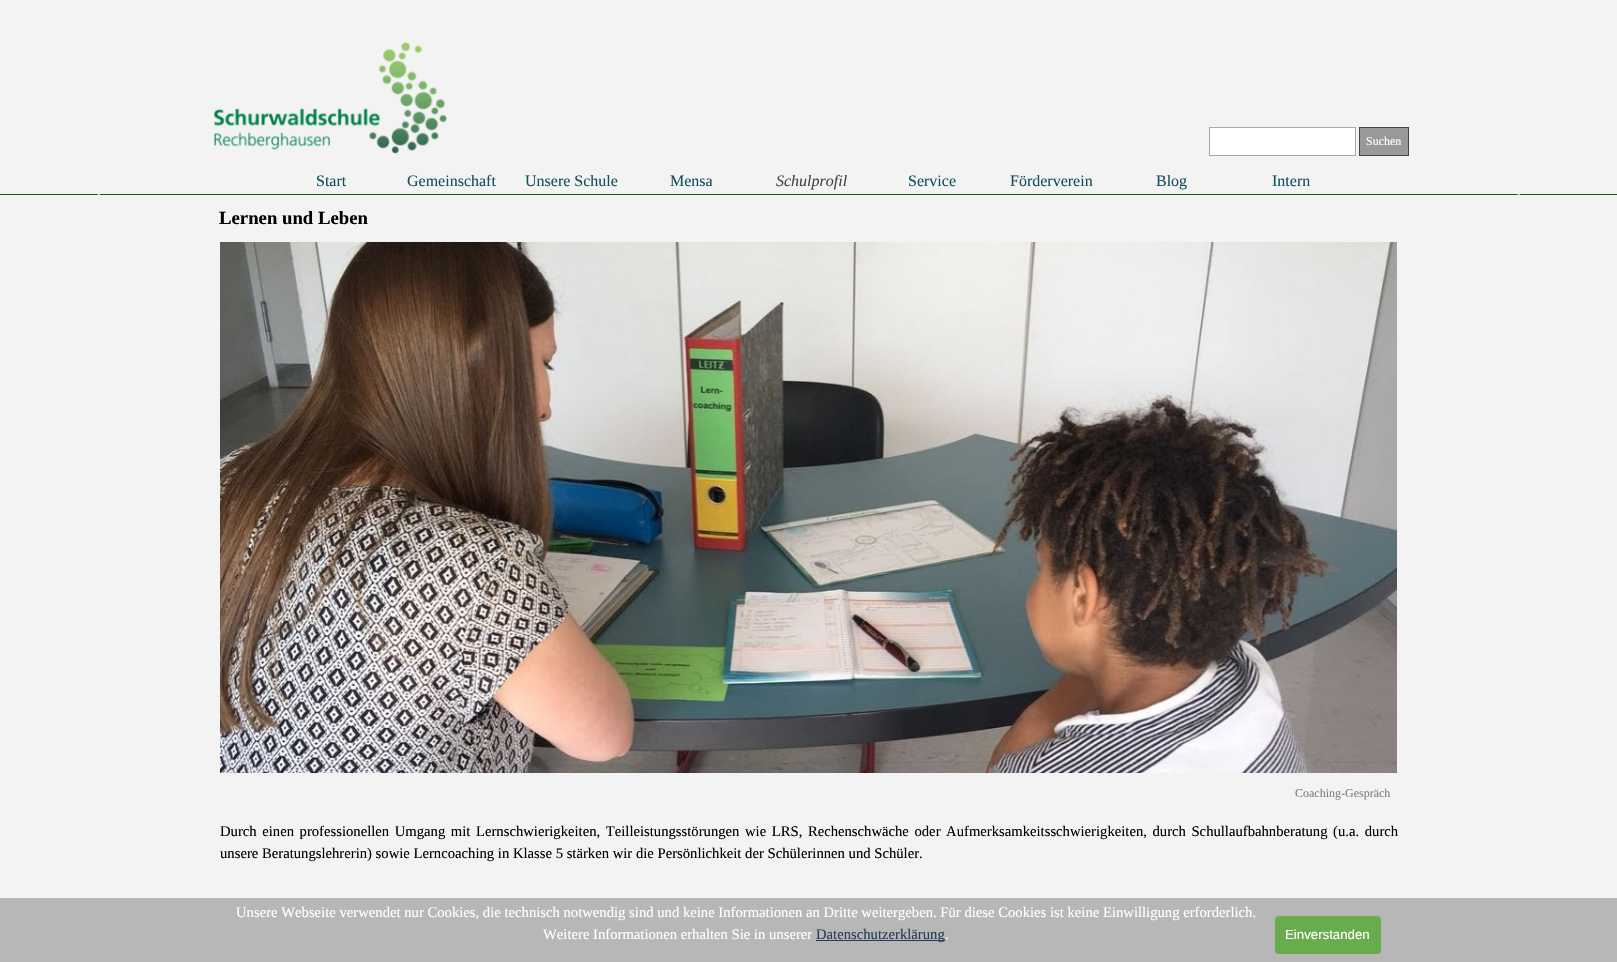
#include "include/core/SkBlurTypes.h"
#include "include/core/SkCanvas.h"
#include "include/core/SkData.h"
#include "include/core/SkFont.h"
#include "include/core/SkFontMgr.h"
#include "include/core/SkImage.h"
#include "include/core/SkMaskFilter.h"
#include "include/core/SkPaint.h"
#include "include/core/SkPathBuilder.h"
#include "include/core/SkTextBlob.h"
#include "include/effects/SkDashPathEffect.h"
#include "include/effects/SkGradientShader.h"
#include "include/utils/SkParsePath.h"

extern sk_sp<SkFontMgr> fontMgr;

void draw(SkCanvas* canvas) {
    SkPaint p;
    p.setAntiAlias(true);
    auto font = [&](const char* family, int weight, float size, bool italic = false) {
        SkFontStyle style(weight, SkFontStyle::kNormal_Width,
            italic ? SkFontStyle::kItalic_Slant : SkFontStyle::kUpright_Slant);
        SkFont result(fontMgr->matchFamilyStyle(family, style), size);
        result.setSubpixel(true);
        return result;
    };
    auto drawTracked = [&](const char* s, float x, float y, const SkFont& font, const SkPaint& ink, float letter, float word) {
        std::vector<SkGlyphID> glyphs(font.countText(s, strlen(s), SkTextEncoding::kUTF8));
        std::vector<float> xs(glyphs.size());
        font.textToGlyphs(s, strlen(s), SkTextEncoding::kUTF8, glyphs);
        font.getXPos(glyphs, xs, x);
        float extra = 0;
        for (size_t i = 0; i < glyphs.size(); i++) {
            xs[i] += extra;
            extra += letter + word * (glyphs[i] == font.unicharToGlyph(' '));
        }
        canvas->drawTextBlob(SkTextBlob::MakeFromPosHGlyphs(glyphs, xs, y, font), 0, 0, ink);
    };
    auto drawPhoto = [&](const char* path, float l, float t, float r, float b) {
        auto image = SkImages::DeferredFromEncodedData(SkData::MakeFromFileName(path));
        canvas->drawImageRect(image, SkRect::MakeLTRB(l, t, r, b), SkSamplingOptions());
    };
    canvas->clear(0xFFF3F3F3);
    drawPhoto("media/1.png", 213, 42, 447, 154);
    p.setColor(0xFFFFFFFF);
    canvas->drawRect(SkRect::MakeLTRB(1209.5f, 127.5f, 1355.5f, 155.5f), p);
    p.setStyle(SkPaint::kStroke_Style);
    p.setStrokeWidth(1);
    p.setColor(0xFFA9A9A9);
    canvas->drawRect(SkRect::MakeLTRB(1209.5f, 127.5f, 1355.5f, 155.5f), p);
    p.setStyle(SkPaint::kFill_Style);
    p.setColor(0xFF999999);
    canvas->drawRect(SkRect::MakeLTRB(1359.5f, 127.5f, 1408.5f, 155.5f), p);
    p.setStyle(SkPaint::kStroke_Style);
    p.setColor(0xFF434343);
    canvas->drawRect(SkRect::MakeLTRB(1359.5f, 127.5f, 1408.5f, 155.5f), p);
    auto font1 = font("Liberation Serif", 400, 12);
    p.setStyle(SkPaint::kFill_Style);
    p.setColor(0xFFFFFFFF);
    canvas->drawString("Suchen", 1366, 145, font1, p);
    auto font2 = font("Liberation Serif", 400, 16);
    p.setColor(0xFF134F5C);
    {
        const struct { const char* s; float x, y; } items[] = {
            {"Start", 316, 186},
            {"Gemeinschaft", 407, 186},
            {"Unsere Schule", 525, 186},
            {"Mensa", 670, 186},
        };
        for (auto [s, x, y] : items) {
            canvas->drawString(s, x, y, font2, p);
        }
    }
    auto font3 = font("Liberation Serif", 400, 16, true);
    p.setColor(0xFF434343);
    canvas->drawString("Schulprofil", 776, 186, font3, p);
    p.setColor(0xFF134F5C);
    {
        const struct { const char* s; float x, y; } items[] = {
            {"Service", 908, 186},
            {"Förderverein", 1010, 186},
            {"Blog", 1156, 186},
            {"Intern", 1272, 186},
        };
        for (auto [s, x, y] : items) {
            canvas->drawString(s, x, y, font2, p);
        }
    }
    auto font4 = font("Liberation Serif", 700, 18.75f);
    p.setColor(0xFF000000);
    canvas->drawString("Lernen und Leben", 219, 224, font4, p);
    drawPhoto("media/2.png", 220, 242, 1397, 773);
    p.setColor(0xFF808080);
    canvas->drawString("Coaching-Gespräch", 1295, 797, font1, p);
    auto font5 = font("Liberation Serif", 400, 14.67f);
    p.setColor(0xFF000000);
    drawTracked("Durch einen professionellen Umgang mit Lernschwierigkeiten, Teilleistungsstörungen wie LRS, Rechenschwäche oder Aufmerksamkeitsschwierigkeiten, durch Schullaufbahnberatung (u.a. durch", 220, 836, font5, p, 0, 1.9f);
    canvas->drawString("unsere Beratungslehrerin) sowie Lerncoaching in Klasse 5 stärken wir die Persönlichkeit der Schülerinnen und Schüler.", 220, 858, font5, p);
    drawPhoto("media/3.png", 0, 194, 1617, 195);
    p.setColor(0xFFB7B7B7);
    canvas->drawRect(SkRect::MakeLTRB(0, 898, 1617, 962), p);
    p.setColor(0xFFFFFFFF);
    canvas->drawString("Unsere Webseite verwendet nur Cookies, die technisch notwendig sind und keine Informationen an Dritte weitergeben. Für diese Cookies ist keine Einwilligung erforderlich.", 236, 917, font5, p);
    canvas->drawString("Weitere Informationen erhalten Sie in unserer", 543, 939, font5, p);
    p.setColor(0xFF253A58);
    canvas->drawRect(SkRect::MakeLTRB(816, 940, 945, 941), p);
    canvas->drawString("Datenschutzerklärung", 816, 939, font5, p);
    p.setColor(0xFFFFFFFF);
    canvas->drawString(".", 945, 939, font5, p);
    p.setColor(0xFF69AC4D);
    canvas->drawRoundRect(SkRect::MakeLTRB(1275, 916, 1381, 954), 4, 4, p);
    auto font6 = font("Liberation Sans", 400, 13.25f);
    p.setColor(0xFFFFFFFF);
    canvas->drawString("Einverstanden", 1285, 939, font6, p);
}
